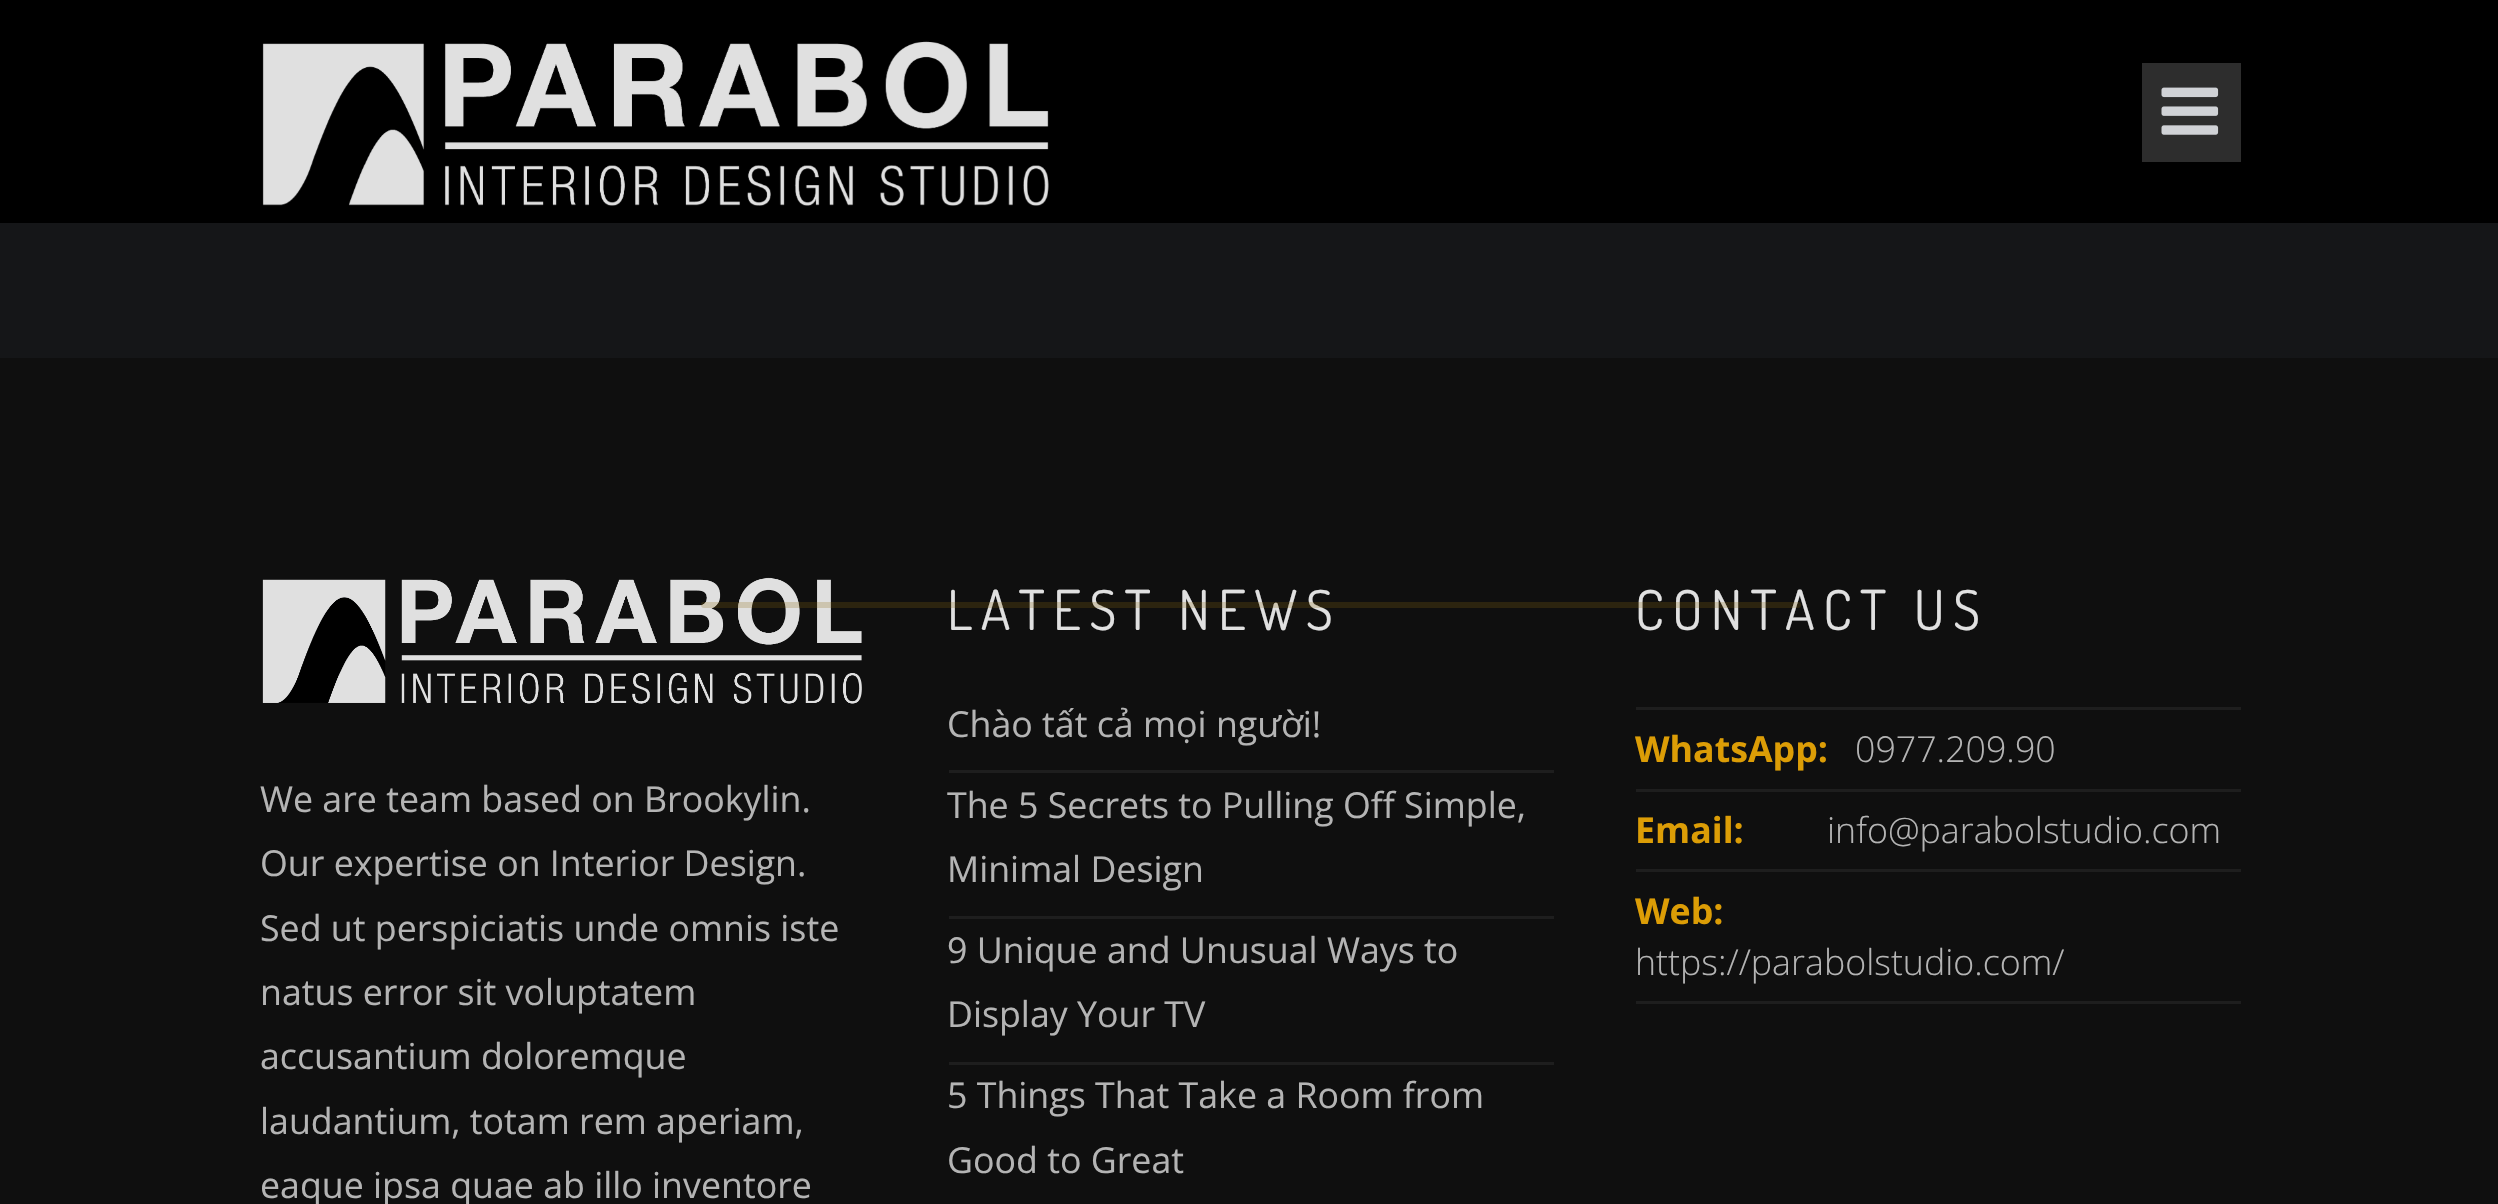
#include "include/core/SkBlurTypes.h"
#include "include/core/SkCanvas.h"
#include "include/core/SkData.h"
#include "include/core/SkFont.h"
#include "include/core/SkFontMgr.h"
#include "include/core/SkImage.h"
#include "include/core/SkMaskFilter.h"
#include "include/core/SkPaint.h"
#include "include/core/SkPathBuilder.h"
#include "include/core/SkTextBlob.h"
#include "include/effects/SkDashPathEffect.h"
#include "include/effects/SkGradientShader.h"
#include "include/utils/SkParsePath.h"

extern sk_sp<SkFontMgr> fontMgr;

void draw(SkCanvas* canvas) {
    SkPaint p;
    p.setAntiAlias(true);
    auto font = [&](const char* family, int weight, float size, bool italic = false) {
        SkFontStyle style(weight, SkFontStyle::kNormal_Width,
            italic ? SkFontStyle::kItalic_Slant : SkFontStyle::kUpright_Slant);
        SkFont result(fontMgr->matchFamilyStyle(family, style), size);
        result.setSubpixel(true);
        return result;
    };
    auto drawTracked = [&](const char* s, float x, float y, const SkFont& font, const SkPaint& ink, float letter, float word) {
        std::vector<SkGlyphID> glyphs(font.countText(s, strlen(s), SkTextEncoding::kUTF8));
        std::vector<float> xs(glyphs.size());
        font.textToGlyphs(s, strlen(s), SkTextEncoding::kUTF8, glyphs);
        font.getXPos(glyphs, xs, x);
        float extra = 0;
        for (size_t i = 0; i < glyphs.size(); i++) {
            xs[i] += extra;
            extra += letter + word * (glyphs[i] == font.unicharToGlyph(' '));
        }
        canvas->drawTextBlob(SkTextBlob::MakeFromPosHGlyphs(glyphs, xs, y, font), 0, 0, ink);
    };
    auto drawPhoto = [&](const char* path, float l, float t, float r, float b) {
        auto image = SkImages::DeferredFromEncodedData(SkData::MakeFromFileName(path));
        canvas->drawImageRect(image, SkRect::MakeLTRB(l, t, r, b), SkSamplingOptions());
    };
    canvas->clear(0xFF151618);
    p.setColor(0xFF000000);
    canvas->drawRect(SkRect::MakeLTRB(0, 0, 2498, 223), p);
    drawPhoto("media/1.png", 262, 41, 1049, 206);
    p.setColor(0xFF2D2D2D);
    canvas->drawRect(SkRect::MakeLTRB(2142, 63, 2241, 162), p);
    drawPhoto("media/2.png", 2161, 87, 2219, 135);
    p.setColor(0xFF0F0F0F);
    canvas->drawRect(SkRect::MakeLTRB(0, 358, 2498, 1204), p);
    drawPhoto("media/3.png", 262, 577, 862, 704);
    auto font1 = font("Open Sans", 400, 35.75f);
    p.setColor(0xFFB4B4B4);
    {
        const struct { const char* s; float x, y; } items[] = {
            {"We are team based on Brookylin.", 260, 812},
            {"Our expertise on Interior Design.", 260, 876},
            {"Sed ut perspiciatis unde omnis iste", 260, 941},
            {"natus error sit voluptatem", 260, 1005},
            {"accusantium doloremque", 260, 1069},
            {"laudantium, totam rem aperiam,", 260, 1134},
            {"eaque ipsa quae ab illo inventore", 260, 1198},
        };
        for (auto [s, x, y] : items) {
            canvas->drawString(s, x, y, font1, p);
        }
    }
    auto font2 = font("Dosis", 400, 55);
    p.setColor(0xFFE0E0E0);
    drawTracked("LATEST NEWS", 947, 630, font2, p, 8.25f, 0);
    p.setColor(0xFF1E1E1E);
    canvas->drawRect(SkRect::MakeLTRB(949, 770, 1554, 773), p);
    p.setColor(0xFFB4B4B4);
    canvas->drawString("Chào tất cả mọi người!", 947, 737, font1, p);
    p.setColor(0xFF1E1E1E);
    canvas->drawRect(SkRect::MakeLTRB(949, 916, 1554, 919), p);
    p.setColor(0xFFB4B4B4);
    canvas->drawString("The 5 Secrets to Pulling Off Simple,", 947, 818, font1, p);
    canvas->drawString("Minimal Design", 947, 882, font1, p);
    p.setColor(0xFF1E1E1E);
    canvas->drawRect(SkRect::MakeLTRB(949, 1062, 1554, 1065), p);
    p.setColor(0xFFB4B4B4);
    {
        const struct { const char* s; float x, y; } items[] = {
            {"9 Unique and Unusual Ways to", 947, 963},
            {"Display Your TV", 947, 1027},
            {"5 Things That Take a Room from", 947, 1108},
            {"Good to Great", 947, 1173},
        };
        for (auto [s, x, y] : items) {
            canvas->drawString(s, x, y, font1, p);
        }
    }
    p.setColor(0xFFE0E0E0);
    drawTracked("CONTACT US", 1635, 630, font2, p, 8.25f, 0);
    p.setColor(0xFF1E1E1E);
    canvas->drawRect(SkRect::MakeLTRB(1636, 707, 2241, 710), p);
    canvas->drawRect(SkRect::MakeLTRB(1636, 789, 2241, 792), p);
    auto font3 = font("Open Sans", 700, 35.75f);
    p.setColor(0xFFDC9D06);
    canvas->drawString("WhatsApp:", 1635, 762, font3, p);
    auto font4 = font("Open Sans", 300, 35.75f);
    p.setColor(0xFFB4B4B4);
    canvas->drawString("0977.209.90", 1855, 762, font4, p);
    p.setColor(0xFF1E1E1E);
    canvas->drawRect(SkRect::MakeLTRB(1636, 869, 2241, 872), p);
    p.setColor(0xFFDC9D06);
    canvas->drawString("Email:", 1635, 843, font3, p);
    p.setColor(0xFFB4B4B4);
    canvas->drawString("info@parabolstudio.com", 1827, 843, font4, p);
    p.setColor(0xFF1E1E1E);
    canvas->drawRect(SkRect::MakeLTRB(1636, 1001, 2241, 1004), p);
    p.setColor(0xFFDC9D06);
    canvas->drawString("Web:", 1635, 924, font3, p);
    p.setColor(0xFFB4B4B4);
    canvas->drawString("https://parabolstudio.com/", 1635, 975, font4, p);
    p.setColor(0x1F111111);
    canvas->drawRoundRect(SkRect::MakeLTRB(701, 602, 1801, 608), 3, 3, p);
    p.setColor(0x1FFAB207);
    canvas->drawRoundRect(SkRect::MakeLTRB(701, 602, 1801, 608), 3, 3, p);
}
